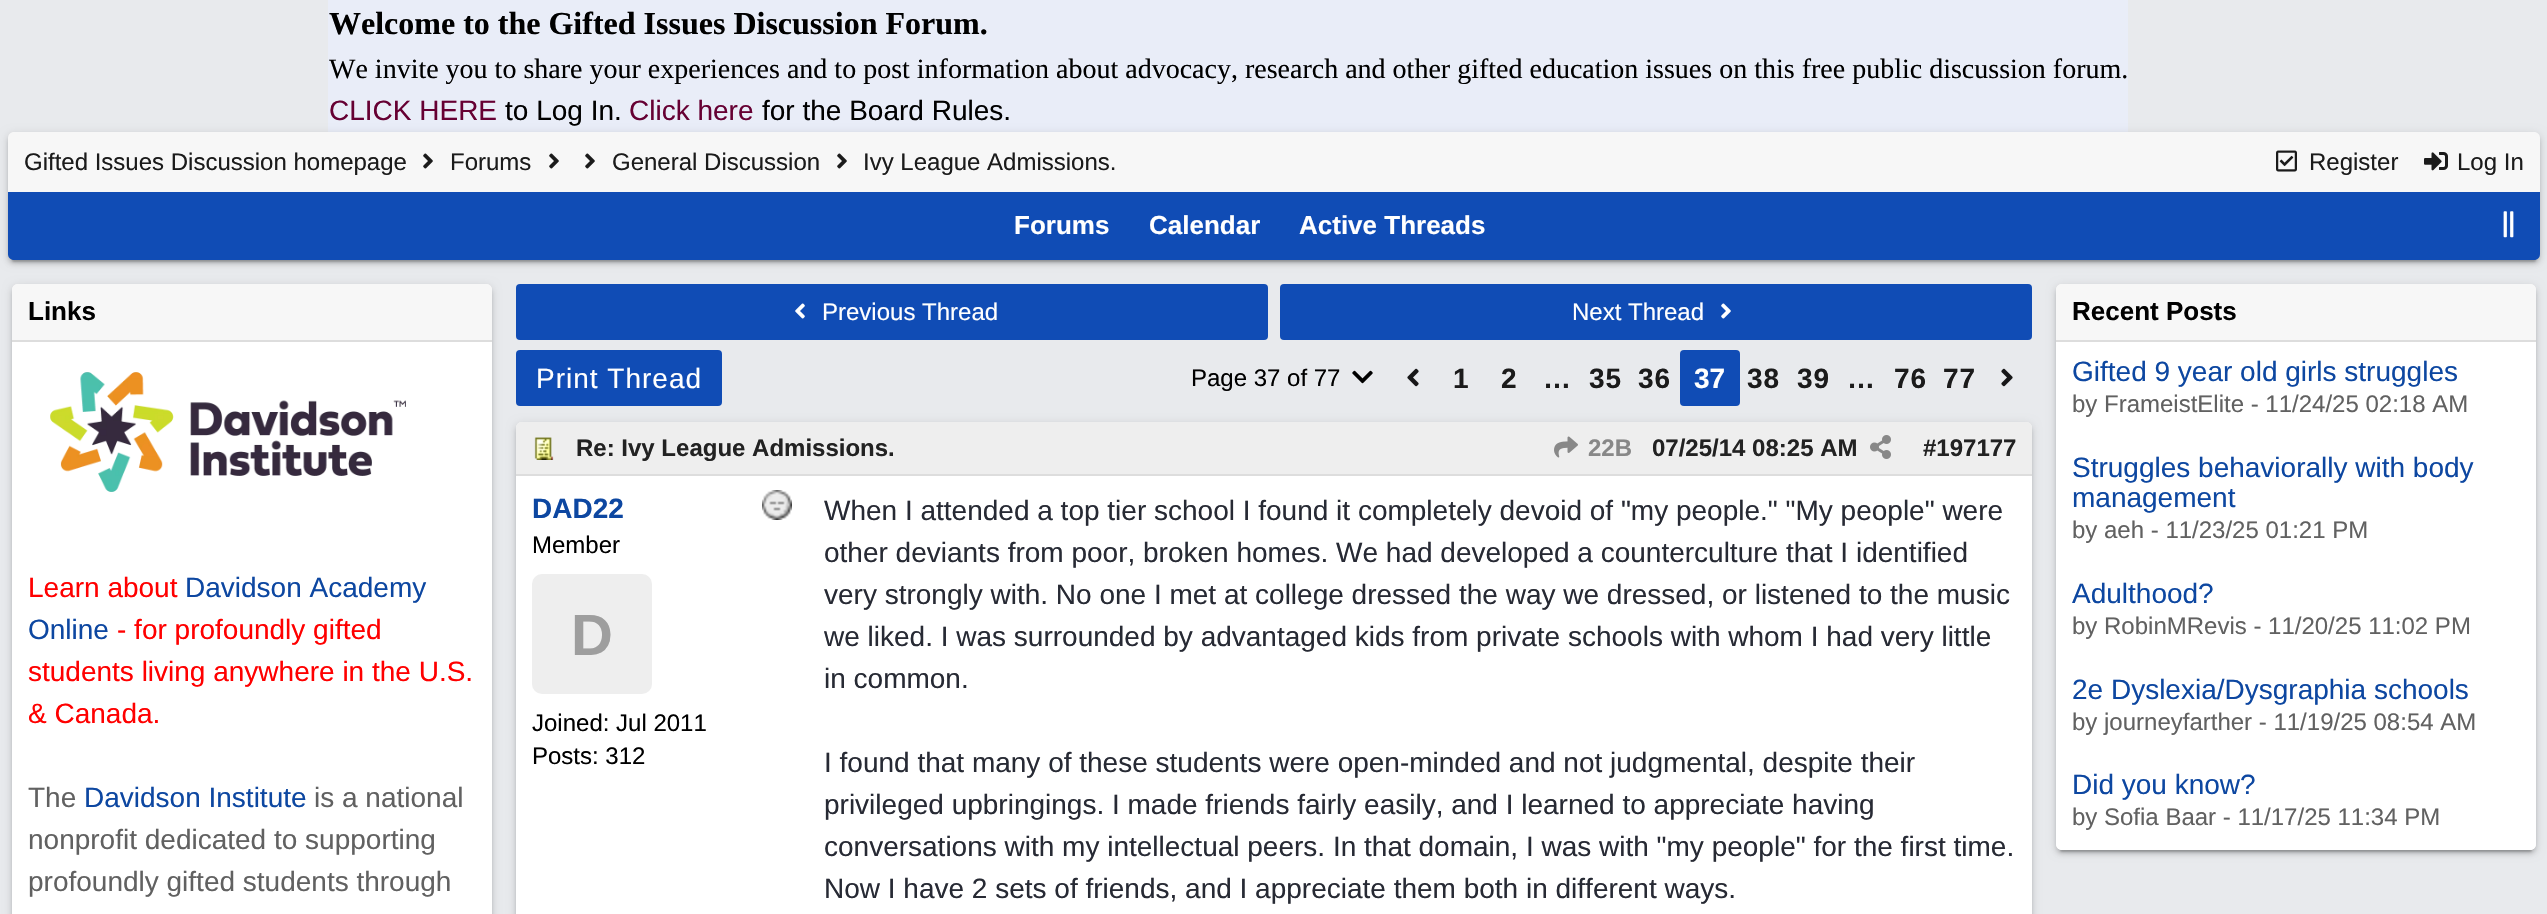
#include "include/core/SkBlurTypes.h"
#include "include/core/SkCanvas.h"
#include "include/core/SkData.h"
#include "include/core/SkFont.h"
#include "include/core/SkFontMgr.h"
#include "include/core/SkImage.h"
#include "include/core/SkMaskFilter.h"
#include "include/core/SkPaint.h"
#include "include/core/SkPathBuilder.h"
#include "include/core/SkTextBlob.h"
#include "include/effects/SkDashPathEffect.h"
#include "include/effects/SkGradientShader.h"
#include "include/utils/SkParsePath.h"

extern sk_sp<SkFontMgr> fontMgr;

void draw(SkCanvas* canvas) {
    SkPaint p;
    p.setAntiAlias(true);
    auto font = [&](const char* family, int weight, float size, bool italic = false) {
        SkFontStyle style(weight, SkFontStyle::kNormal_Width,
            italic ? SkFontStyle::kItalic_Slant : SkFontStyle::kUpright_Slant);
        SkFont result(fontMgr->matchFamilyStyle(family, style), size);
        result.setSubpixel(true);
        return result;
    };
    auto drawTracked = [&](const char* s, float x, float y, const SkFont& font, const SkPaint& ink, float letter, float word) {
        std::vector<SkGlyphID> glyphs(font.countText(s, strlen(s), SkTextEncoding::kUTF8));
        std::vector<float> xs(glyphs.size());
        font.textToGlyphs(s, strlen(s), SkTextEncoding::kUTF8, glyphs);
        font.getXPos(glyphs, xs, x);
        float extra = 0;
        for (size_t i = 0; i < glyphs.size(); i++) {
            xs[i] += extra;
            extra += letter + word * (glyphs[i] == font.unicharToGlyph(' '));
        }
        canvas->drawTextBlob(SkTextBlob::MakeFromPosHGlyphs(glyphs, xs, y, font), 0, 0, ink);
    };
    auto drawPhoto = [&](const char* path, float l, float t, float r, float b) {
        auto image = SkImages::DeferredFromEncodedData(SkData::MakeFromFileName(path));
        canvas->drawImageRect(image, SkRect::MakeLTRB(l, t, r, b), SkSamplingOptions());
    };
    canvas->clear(0xFFE8EAED);
    p.setColor(0xFFE9EDF8);
    canvas->drawRect(SkRect::MakeLTRB(328, 0, 2128, 132), p);
    auto font1 = font("Liberation Serif", 700, 32);
    p.setColor(0xFF000000);
    canvas->drawString("Welcome to the Gifted Issues Discussion Forum.", 329, 34, font1, p);
    auto font2 = font("Liberation Serif", 400, 28);
    canvas->drawString("We invite you to share your experiences and to post information about advocacy, research and other gifted education issues on this free public discussion forum.", 329, 78, font2, p);
    auto font3 = font("Liberation Sans", 400, 28);
    p.setColor(0xFF660033);
    canvas->drawString("CLICK HERE", 329, 120, font3, p);
    p.setColor(0xFF000000);
    canvas->drawString("to Log In.", 505, 120, font3, p);
    p.setColor(0xFF660033);
    canvas->drawString("Click here", 629, 120, font3, p);
    p.setColor(0xFF000000);
    canvas->drawString("for the Board Rules.", 762, 120, font3, p);
    p.setColor(0x33000000);
    p.setMaskFilter(SkMaskFilter::MakeBlur(kNormal_SkBlurStyle, 1));
    canvas->drawRoundRect(SkRect::MakeLTRB(12, 142, 2536, 262), 2, 2, p);
    p.setMaskFilter(nullptr);
    p.setColor(0x1F000000);
    p.setMaskFilter(SkMaskFilter::MakeBlur(kNormal_SkBlurStyle, 5));
    canvas->drawRoundRect(SkRect::MakeLTRB(8, 134, 2540, 262), 6, 6, p);
    p.setMaskFilter(nullptr);
    p.setColor(0x24000000);
    p.setMaskFilter(SkMaskFilter::MakeBlur(kNormal_SkBlurStyle, 2));
    canvas->drawRoundRect(SkRect::MakeLTRB(8, 136, 2540, 264), 6, 6, p);
    p.setMaskFilter(nullptr);
    p.setColor(0xFFF7F7F7);
    canvas->drawPath(SkPathBuilder().moveTo(14, 132).lineTo(2534, 132).cubicTo(2537.5f, 132, 2540, 134.5f, 2540, 138).lineTo(2540, 192).lineTo(8, 192).lineTo(8, 138).cubicTo(8, 134.5f, 10.5f, 132, 14, 132).close().detach(), p);
    auto font4 = font("Liberation Sans", 400, 24);
    p.setColor(0xFF1B1B1B);
    canvas->drawString("Gifted Issues Discussion homepage", 24, 170, font4, p);
    drawPhoto("media/1.png", 423, 153, 433, 169);
    canvas->drawString("Forums", 450, 170, font4, p);
    drawPhoto("media/1.png", 549, 153, 559, 169);
    drawPhoto("media/1.png", 585, 153, 595, 169);
    canvas->drawString("General Discussion", 612, 170, font4, p);
    drawPhoto("media/1.png", 837, 153, 847, 169);
    canvas->drawString("Ivy League Admissions.", 863, 170, font4, p);
    drawPhoto("media/2.png", 2276, 150, 2297, 172);
    canvas->drawString("Register", 2309, 170, font4, p);
    drawPhoto("media/3.png", 2424, 152, 2448, 171);
    canvas->drawString("Log In", 2457, 170, font4, p);
    p.setColor(0xFF104CB5);
    canvas->drawPath(SkPathBuilder().moveTo(8, 192).lineTo(2540, 192).lineTo(2540, 254).cubicTo(2540, 257.5f, 2537.5f, 260, 2534, 260).lineTo(14, 260).cubicTo(10.5f, 260, 8, 257.5f, 8, 254).close().detach(), p);
    auto font5 = font("Liberation Sans", 700, 26);
    p.setColor(0xFFFFFFFF);
    {
        const struct { const char* s; float x, y; } items[] = {
            {"Forums", 1014, 234},
            {"Calendar", 1149, 234},
            {"Active Threads", 1299, 234},
        };
        for (auto [s, x, y] : items) {
            canvas->drawString(s, x, y, font5, p);
        }
    }
    drawPhoto("media/4.png", 2503, 211, 2514, 238);
    p.setColor(0x1F000000);
    p.setMaskFilter(SkMaskFilter::MakeBlur(kNormal_SkBlurStyle, 5));
    canvas->drawRoundRect(SkRect::MakeLTRB(12, 286, 492, 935), 6, 6, p);
    p.setMaskFilter(nullptr);
    p.setColor(0x24000000);
    p.setMaskFilter(SkMaskFilter::MakeBlur(kNormal_SkBlurStyle, 2));
    canvas->drawRoundRect(SkRect::MakeLTRB(12, 288, 492, 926), 6, 6, p);
    p.setMaskFilter(nullptr);
    p.setColor(0xFFFFFFFF);
    canvas->drawRoundRect(SkRect::MakeLTRB(12, 284, 492, 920), 6, 6, p);
    p.setColor(0xFFF7F7F7);
    canvas->drawPath(SkPathBuilder().moveTo(18, 284).lineTo(486, 284).cubicTo(489.5f, 284, 492, 286.5f, 492, 290).lineTo(492, 342).lineTo(12, 342).lineTo(12, 290).cubicTo(12, 286.5f, 14.5f, 284, 18, 284).close().detach(), p);
    p.setColor(0xFFDDDDDD);
    canvas->drawRect(SkRect::MakeLTRB(12, 340, 492, 342), p);
    p.setColor(0xFF000000);
    canvas->drawString("Links", 28, 320, font5, p);
    drawPhoto("media/5.png", 50, 372, 406, 492);
    p.setColor(0xFFFF0000);
    canvas->drawString("Learn about", 28, 597, font3, p);
    p.setColor(0xFF0D47A1);
    canvas->drawString("Davidson Academy", 185, 597, font3, p);
    canvas->drawString("Online", 28, 639, font3, p);
    p.setColor(0xFFFF0000);
    {
        const struct { const char* s; float x, y; } items[] = {
            {"- for profoundly gifted", 117, 639},
            {"students living anywhere in the U.S.", 28, 681},
            {"& Canada.", 28, 723},
        };
        for (auto [s, x, y] : items) {
            canvas->drawString(s, x, y, font3, p);
        }
    }
    p.setColor(0xFF616161);
    canvas->drawString("The", 28, 807, font3, p);
    p.setColor(0xFF0D47A1);
    canvas->drawString("Davidson Institute", 84, 807, font3, p);
    p.setColor(0xFF616161);
    {
        const struct { const char* s; float x, y; } items[] = {
            {"is a national", 314, 807},
            {"nonprofit dedicated to supporting", 28, 849},
            {"profoundly gifted students through", 28, 891},
        };
        for (auto [s, x, y] : items) {
            canvas->drawString(s, x, y, font3, p);
        }
    }
    p.setColor(0xFF104CB5);
    canvas->drawRoundRect(SkRect::MakeLTRB(516, 284, 1268, 340), 4, 4, p);
    drawPhoto("media/6.png", 795, 303, 805, 319);
    p.setColor(0xFFFFFFFF);
    canvas->drawString("Previous Thread", 822, 320, font4, p);
    p.setColor(0xFF104CB5);
    canvas->drawRoundRect(SkRect::MakeLTRB(1280, 284, 2032, 340), 4, 4, p);
    p.setColor(0xFFFFFFFF);
    canvas->drawString("Next Thread", 1572, 320, font4, p);
    drawPhoto("media/7.png", 1721, 303, 1731, 319);
    p.setColor(0xFF104CB5);
    canvas->drawRoundRect(SkRect::MakeLTRB(516, 350, 722, 406), 4, 4, p);
    p.setColor(0xFFFFFFFF);
    drawTracked("Print Thread", 536, 388, font3, p, 1, 0);
    p.setColor(0xFF000000);
    canvas->drawString("Page 37 of 77", 1191, 386, font4, p);
    drawPhoto("media/8.png", 1352, 370, 1373, 384);
    drawPhoto("media/9.png", 1407, 368, 1419, 387);
    auto font6 = font("Liberation Sans", 700, 28);
    p.setColor(0xFF1B1B1B);
    {
        const struct { const char* s; float x, y; } items[] = {
            {"1", 1453, 388},
            {"2", 1501, 388},
            {"…", 1543, 388},
            {"35", 1589, 388},
            {"36", 1638, 388},
        };
        for (auto [s, x, y] : items) {
            drawTracked(s, x, y, font6, p, 1, 0);
        }
    }
    p.setColor(0xFF104CB5);
    canvas->drawRoundRect(SkRect::MakeLTRB(1680, 350, 1740, 406), 4, 4, p);
    p.setColor(0xFFFFFFFF);
    canvas->drawString("37", 1694, 388, font6, p);
    p.setColor(0xFF1B1B1B);
    {
        const struct { const char* s; float x, y; } items[] = {
            {"38", 1747, 388},
            {"39", 1797, 388},
            {"…", 1847, 388},
            {"76", 1894, 388},
            {"77", 1943, 388},
        };
        for (auto [s, x, y] : items) {
            drawTracked(s, x, y, font6, p, 1, 0);
        }
    }
    drawPhoto("media/10.png", 2001, 368, 2013, 387);
    p.setColor(0x1F000000);
    p.setMaskFilter(SkMaskFilter::MakeBlur(kNormal_SkBlurStyle, 5));
    canvas->drawRoundRect(SkRect::MakeLTRB(516, 424, 2032, 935), 6, 6, p);
    p.setMaskFilter(nullptr);
    p.setColor(0x24000000);
    p.setMaskFilter(SkMaskFilter::MakeBlur(kNormal_SkBlurStyle, 2));
    canvas->drawRoundRect(SkRect::MakeLTRB(516, 426, 2032, 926), 6, 6, p);
    p.setMaskFilter(nullptr);
    p.setColor(0xFFFFFFFF);
    canvas->drawRoundRect(SkRect::MakeLTRB(516, 422, 2032, 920), 6, 6, p);
    p.setColor(0xFFEEEEEE);
    canvas->drawPath(SkPathBuilder().moveTo(522, 422).lineTo(2026, 422).cubicTo(2029.5f, 422, 2032, 424.5f, 2032, 428).lineTo(2032, 476).lineTo(516, 476).lineTo(516, 428).cubicTo(516, 424.5f, 518.5f, 422, 522, 422).close().detach(), p);
    p.setColor(0xFFDDDDDD);
    canvas->drawRect(SkRect::MakeLTRB(516, 474, 2032, 476), p);
    drawPhoto("media/11.png", 534, 437, 554, 460);
    auto font7 = font("Liberation Sans", 700, 24);
    p.setColor(0xFF222222);
    canvas->drawString("Re: Ivy League Admissions.", 576, 456, font7, p);
    drawPhoto("media/12.png", 1554, 436, 1578, 458);
    p.setColor(0xFF888888);
    canvas->drawString("22B", 1588, 456, font7, p);
    p.setColor(0xFF222222);
    canvas->drawString("07/25/14 08:25 AM", 1652, 456, font7, p);
    drawPhoto("media/13.png", 1870, 435, 1891, 459);
    canvas->drawString("#197177", 1923, 456, font7, p);
    p.setColor(0xFF0D47A1);
    canvas->drawString("DAD22", 532, 518, font6, p);
    drawPhoto("media/14.png", 762, 490, 792, 520);
    p.setColor(0xFF000000);
    canvas->drawString("Member", 532, 553, font4, p);
    p.setColor(0xFFEEEEEE);
    canvas->drawRoundRect(SkRect::MakeLTRB(532, 574, 652, 694), 10, 10, p);
    auto font8 = font("Liberation Sans", 700, 58);
    p.setColor(0xFF9E9E9E);
    canvas->drawString("D", 571, 655, font8, p);
    p.setColor(0xFF000000);
    canvas->drawString("Joined: Jul 2011", 532, 731, font4, p);
    canvas->drawString("Posts: 312", 532, 764, font4, p);
    p.setColor(0xFF272A34);
    {
        const struct { const char* s; float x, y; } items[] = {
            {"When I attended a top tier school I found it completely devoid of \"my people.\" \"My people\" were", 824, 520},
            {"other deviants from poor, broken homes. We had developed a counterculture that I identified", 824, 562},
            {"very strongly with. No one I met at college dressed the way we dressed, or listened to the music", 824, 604},
            {"we liked. I was surrounded by advantaged kids from private schools with whom I had very little", 824, 646},
            {"in common.", 824, 688},
            {"I found that many of these students were open-minded and not judgmental, despite their", 824, 772},
            {"privileged upbringings. I made friends fairly easily, and I learned to appreciate having", 824, 814},
            {"conversations with my intellectual peers. In that domain, I was with \"my people\" for the first time.", 824, 856},
            {"Now I have 2 sets of friends, and I appreciate them both in different ways.", 824, 898},
        };
        for (auto [s, x, y] : items) {
            canvas->drawString(s, x, y, font3, p);
        }
    }
    p.setColor(0x33000000);
    p.setMaskFilter(SkMaskFilter::MakeBlur(kNormal_SkBlurStyle, 1));
    canvas->drawRoundRect(SkRect::MakeLTRB(2060, 294, 2532, 852), 2, 2, p);
    p.setMaskFilter(nullptr);
    p.setColor(0x1F000000);
    p.setMaskFilter(SkMaskFilter::MakeBlur(kNormal_SkBlurStyle, 5));
    canvas->drawRoundRect(SkRect::MakeLTRB(2056, 286, 2536, 852), 6, 6, p);
    p.setMaskFilter(nullptr);
    p.setColor(0x24000000);
    p.setMaskFilter(SkMaskFilter::MakeBlur(kNormal_SkBlurStyle, 2));
    canvas->drawRoundRect(SkRect::MakeLTRB(2056, 288, 2536, 854), 6, 6, p);
    p.setMaskFilter(nullptr);
    p.setColor(0xFFFFFFFF);
    canvas->drawRoundRect(SkRect::MakeLTRB(2056, 284, 2536, 850), 6, 6, p);
    p.setColor(0xFFF7F7F7);
    canvas->drawPath(SkPathBuilder().moveTo(2062, 284).lineTo(2530, 284).cubicTo(2533.5f, 284, 2536, 286.5f, 2536, 290).lineTo(2536, 342).lineTo(2056, 342).lineTo(2056, 290).cubicTo(2056, 286.5f, 2058.5f, 284, 2062, 284).close().detach(), p);
    p.setColor(0xFFDDDDDD);
    canvas->drawRect(SkRect::MakeLTRB(2056, 340, 2536, 342), p);
    p.setColor(0xFF000000);
    canvas->drawString("Recent Posts", 2072, 320, font5, p);
    p.setColor(0xFF0D47A1);
    canvas->drawString("Gifted 9 year old girls struggles", 2072, 381, font3, p);
    p.setColor(0xFF616161);
    canvas->drawString("by FrameistElite - 11/24/25 02:18 AM", 2072, 412, font4, p);
    p.setColor(0xFF0D47A1);
    canvas->drawString("Struggles behaviorally with body", 2072, 477, font3, p);
    canvas->drawString("management", 2072, 507, font3, p);
    p.setColor(0xFF616161);
    canvas->drawString("by aeh - 11/23/25 01:21 PM", 2072, 538, font4, p);
    p.setColor(0xFF0D47A1);
    canvas->drawString("Adulthood?", 2072, 603, font3, p);
    p.setColor(0xFF616161);
    canvas->drawString("by RobinMRevis - 11/20/25 11:02 PM", 2072, 634, font4, p);
    p.setColor(0xFF0D47A1);
    canvas->drawString("2e Dyslexia/Dysgraphia schools", 2072, 699, font3, p);
    p.setColor(0xFF616161);
    canvas->drawString("by journeyfarther - 11/19/25 08:54 AM", 2072, 730, font4, p);
    p.setColor(0xFFFFFFFF);
    canvas->drawPath(SkPathBuilder().moveTo(2056, 754).lineTo(2536, 754).lineTo(2536, 844).cubicTo(2536, 847.5f, 2533.5f, 850, 2530, 850).lineTo(2062, 850).cubicTo(2058.5f, 850, 2056, 847.5f, 2056, 844).close().detach(), p);
    p.setColor(0xFF0D47A1);
    canvas->drawString("Did you know?", 2072, 794, font3, p);
    p.setColor(0xFF616161);
    canvas->drawString("by Sofia Baar - 11/17/25 11:34 PM", 2072, 825, font4, p);
}
